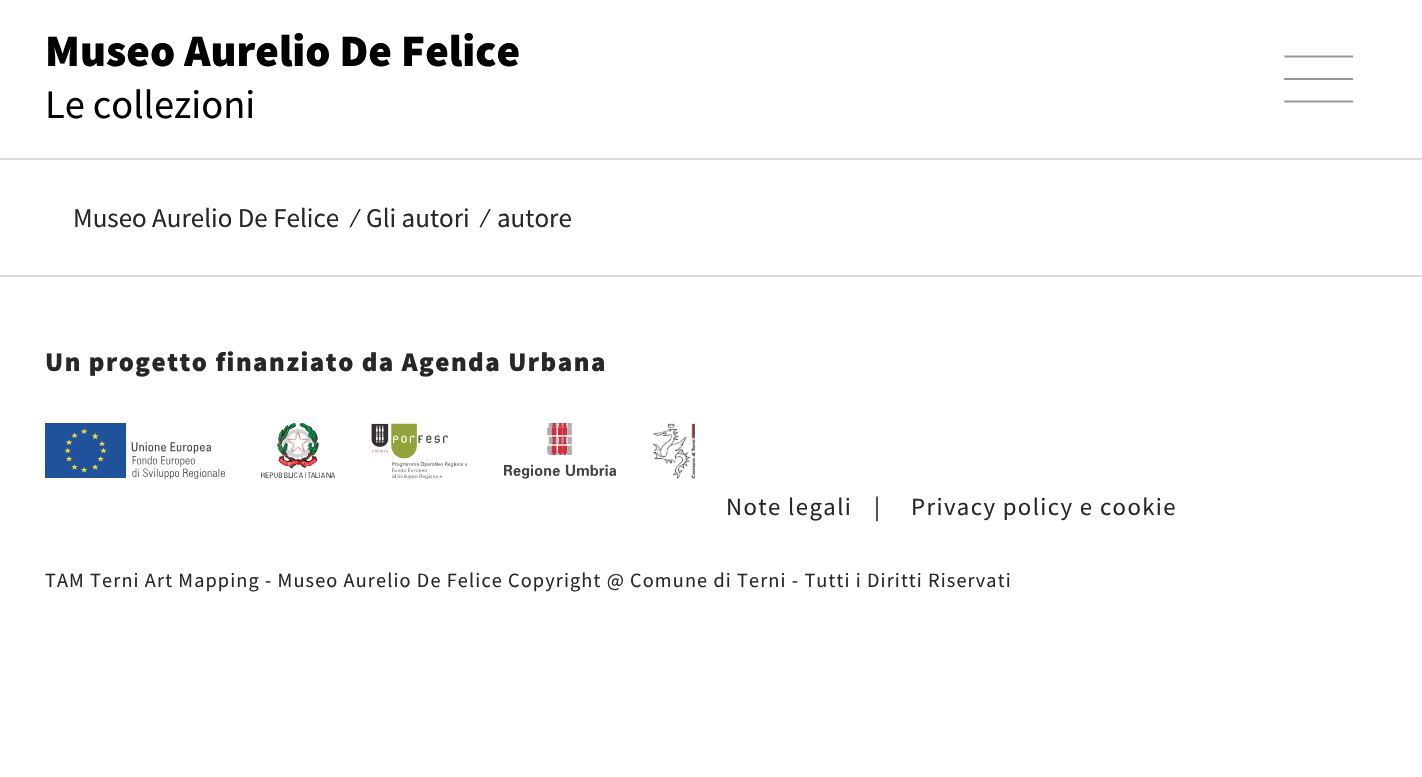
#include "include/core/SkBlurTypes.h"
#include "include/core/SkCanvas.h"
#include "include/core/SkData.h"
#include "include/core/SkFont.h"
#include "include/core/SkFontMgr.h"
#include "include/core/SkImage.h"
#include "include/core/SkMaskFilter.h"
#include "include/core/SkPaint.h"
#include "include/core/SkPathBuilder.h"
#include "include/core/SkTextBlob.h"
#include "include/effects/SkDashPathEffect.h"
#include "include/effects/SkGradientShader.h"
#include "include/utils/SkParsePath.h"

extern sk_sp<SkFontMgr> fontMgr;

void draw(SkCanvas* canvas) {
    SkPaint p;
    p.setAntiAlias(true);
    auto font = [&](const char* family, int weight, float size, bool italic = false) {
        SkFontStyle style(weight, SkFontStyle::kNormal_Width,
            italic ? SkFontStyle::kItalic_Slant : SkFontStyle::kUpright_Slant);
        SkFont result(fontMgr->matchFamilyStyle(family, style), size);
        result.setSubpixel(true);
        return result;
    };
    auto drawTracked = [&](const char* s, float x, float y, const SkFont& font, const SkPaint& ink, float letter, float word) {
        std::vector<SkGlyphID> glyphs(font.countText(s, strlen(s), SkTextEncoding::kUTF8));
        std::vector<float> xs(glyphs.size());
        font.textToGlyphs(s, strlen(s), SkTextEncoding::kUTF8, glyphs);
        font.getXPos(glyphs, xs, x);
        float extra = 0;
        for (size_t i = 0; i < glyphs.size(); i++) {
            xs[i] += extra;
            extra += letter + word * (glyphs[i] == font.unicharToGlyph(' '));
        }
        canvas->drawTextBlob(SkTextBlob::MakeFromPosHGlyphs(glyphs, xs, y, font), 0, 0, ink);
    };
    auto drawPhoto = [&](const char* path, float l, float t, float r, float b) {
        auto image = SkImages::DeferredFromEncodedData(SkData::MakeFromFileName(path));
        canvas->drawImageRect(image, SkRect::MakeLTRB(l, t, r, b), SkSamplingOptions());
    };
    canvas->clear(0xFFFFFFFF);
    p.setColor(0xFFDDDDDD);
    canvas->drawRect(SkRect::MakeLTRB(0, 158, 1422, 160), p);
    auto font1 = font("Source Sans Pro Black", 900, 45);
    p.setColor(0xFF000000);
    canvas->drawString("Museo Aurelio De Felice", 45, 66, font1, p);
    auto font2 = font("Source Sans Pro", 400, 40.5f);
    canvas->drawString("Le collezioni", 45, 118, font2, p);
    p.setStyle(SkPaint::kStroke_Style);
    p.setStrokeWidth(2.2f);
    p.setStrokeCap(SkPaint::kSquare_Cap);
    p.setColor(0xFF979797);
    canvas->drawPath(SkPathBuilder().moveTo(1285.5f, 56.5f).lineTo(1352, 56.5f).detach(), p);
    p.setStyle(SkPaint::kFill_Style);
    canvas->drawRect(SkRect::MakeLTRB(1284, 78, 1353, 80), p);
    p.setStyle(SkPaint::kStroke_Style);
    canvas->drawPath(SkPathBuilder().moveTo(1285.5f, 101.5f).lineTo(1352, 101.5f).detach(), p);
    auto font3 = font("Source Sans Pro", 400, 27);
    p.setStyle(SkPaint::kFill_Style);
    p.setColor(0xFF282727);
    canvas->drawString("Museo Aurelio De Felice", 73, 227, font3, p);
    p.setColor(0xFF1A1A1A);
    canvas->drawString("⁄", 354, 227, font3, p);
    p.setColor(0xFF282727);
    canvas->drawString("Gli autori", 366, 227, font3, p);
    p.setColor(0xFF1A1A1A);
    canvas->drawString("⁄", 484, 227, font3, p);
    p.setColor(0xFF282727);
    canvas->drawString("autore", 497, 227, font3, p);
    p.setColor(0xFFDDDDDD);
    canvas->drawRect(SkRect::MakeLTRB(0, 275, 1422, 277), p);
    auto font4 = font("Source Sans Pro Black", 900, 27);
    p.setColor(0xFF282727);
    drawTracked("Un progetto finanziato da Agenda Urbana", 45, 371, font4, p, 1.5f, 0);
    drawPhoto("media/1.png", 45, 423, 225, 479);
    drawPhoto("media/2.png", 261, 423, 335, 478);
    drawPhoto("media/3.png", 371, 423, 468, 479);
    drawPhoto("media/4.png", 504, 423, 616, 479);
    drawPhoto("media/5.png", 653, 423, 695, 479);
    auto font5 = font("Source Sans Pro", 400, 24.75f);
    {
        const struct { const char* s; float x, y; } items[] = {
            {"Note legali", 726, 515},
            {"|", 874, 515},
            {"Privacy policy e cookie", 911, 515},
        };
        for (auto [s, x, y] : items) {
            drawTracked(s, x, y, font5, p, 1.4f, 0);
        }
    }
    auto font6 = font("Source Sans Pro", 400, 20.25f);
    drawTracked("TAM Terni Art Mapping - Museo Aurelio De Felice Copyright @ Comune di Terni - Tutti i Diritti Riservati", 45, 587, font6, p, 1.12f, 0);
}
